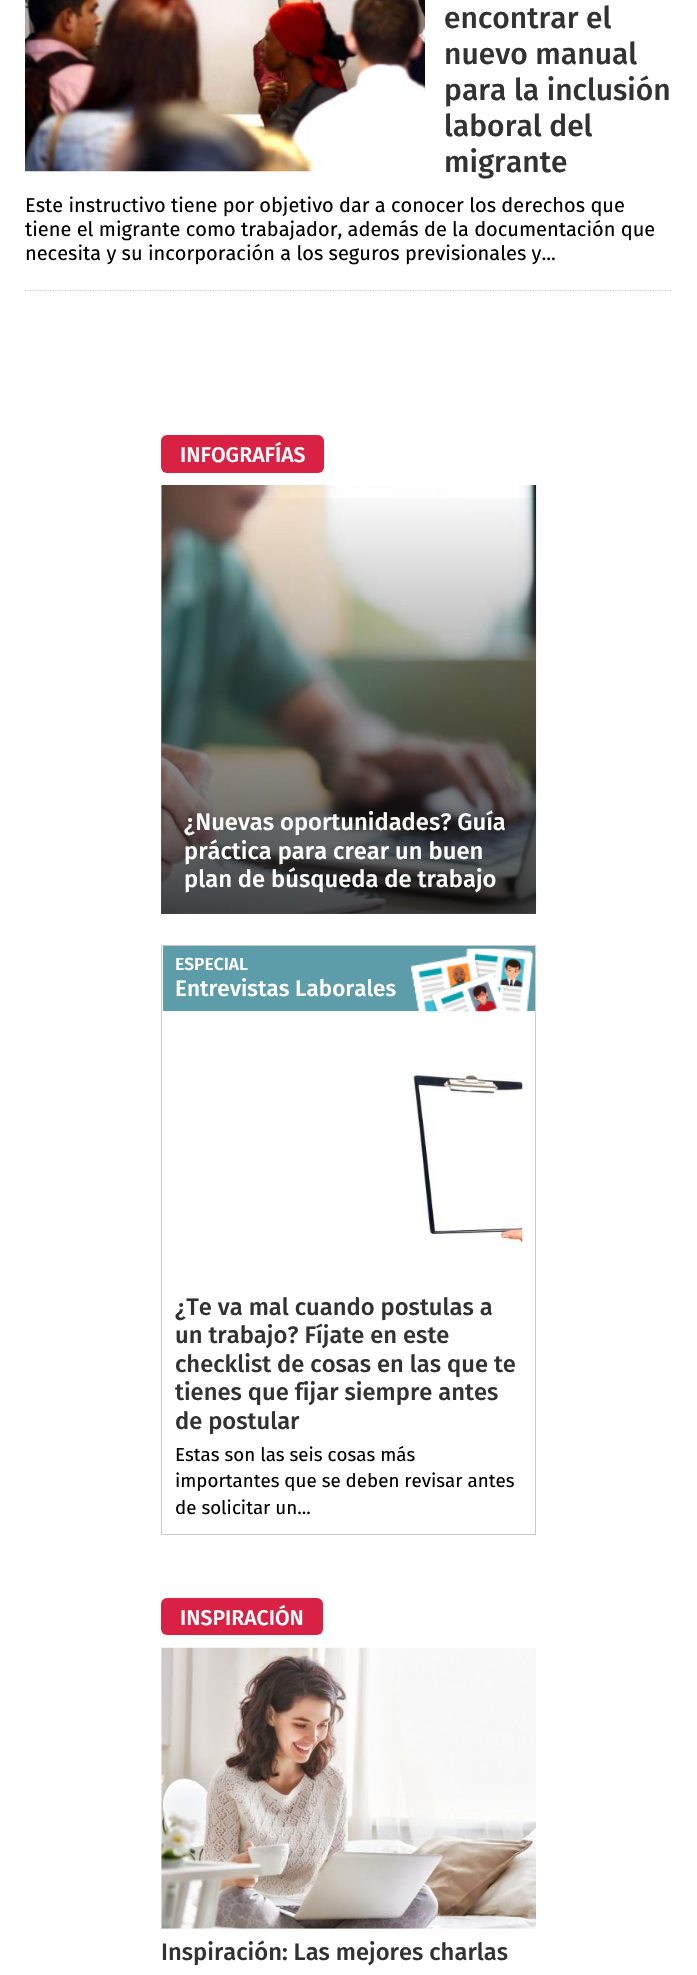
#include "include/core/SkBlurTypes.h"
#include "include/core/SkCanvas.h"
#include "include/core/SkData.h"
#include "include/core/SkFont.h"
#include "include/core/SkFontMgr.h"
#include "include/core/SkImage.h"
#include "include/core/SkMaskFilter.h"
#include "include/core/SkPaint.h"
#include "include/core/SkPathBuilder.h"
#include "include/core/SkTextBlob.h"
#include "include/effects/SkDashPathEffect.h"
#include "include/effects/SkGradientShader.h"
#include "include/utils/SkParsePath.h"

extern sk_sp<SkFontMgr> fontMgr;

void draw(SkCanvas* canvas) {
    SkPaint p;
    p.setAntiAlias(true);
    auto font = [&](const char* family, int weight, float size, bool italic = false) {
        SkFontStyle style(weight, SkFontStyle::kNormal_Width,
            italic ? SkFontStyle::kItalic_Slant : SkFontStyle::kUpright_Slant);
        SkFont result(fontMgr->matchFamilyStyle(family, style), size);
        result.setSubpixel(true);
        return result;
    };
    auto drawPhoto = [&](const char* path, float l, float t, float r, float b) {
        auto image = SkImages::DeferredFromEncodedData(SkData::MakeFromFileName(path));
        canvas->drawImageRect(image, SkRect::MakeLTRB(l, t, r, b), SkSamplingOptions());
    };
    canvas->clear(0xFFFFFFFF);
    p.setStyle(SkPaint::kStroke_Style);
    p.setStrokeWidth(1.2f);
    p.setColor(0xFFCCCCCC);
    p.setPathEffect(SkDashPathEffect::Make({{1.25f, 1.25f}}, 0));
    canvas->drawPath(SkPathBuilder().moveTo(25, 290.5f).lineTo(672.5f, 290.5f).detach(), p);
    p.setPathEffect(nullptr);
    drawPhoto("media/1.png", 25, 0, 425, 172);
    auto font1 = font("Fira Sans", 500, 30);
    p.setStyle(SkPaint::kFill_Style);
    p.setColor(0xFF323232);
    {
        const struct { const char* s; float x, y; } items[] = {
            {"encontrar el", 444, 28},
            {"nuevo manual", 444, 64},
            {"para la inclusión", 444, 100},
            {"laboral del", 444, 136},
            {"migrante", 444, 172},
        };
        for (auto [s, x, y] : items) {
            canvas->drawString(s, x, y, font1, p);
        }
    }
    auto font2 = font("Fira Sans", 400, 20);
    p.setColor(0xFF000000);
    {
        const struct { const char* s; float x, y; } items[] = {
            {"Este instructivo tiene por objetivo dar a conocer los derechos que", 25, 212},
            {"tiene el migrante como trabajador, además de la documentación que", 25, 236},
            {"necesita y su incorporación a los seguros previsionales y...", 25, 260},
        };
        for (auto [s, x, y] : items) {
            canvas->drawString(s, x, y, font2, p);
        }
    }
    p.setColor(0xFFD82143);
    canvas->drawRoundRect(SkRect::MakeLTRB(161, 435, 324, 473), 6, 6, p);
    auto font3 = font("Fira Sans", 500, 21.25f);
    p.setColor(0xFFFFFFFF);
    canvas->drawString("INFOGRAFÍAS", 180, 462, font3, p);
    drawPhoto("media/2.png", 161, 485, 537, 914);
    {
        const SkColor colors[] = {0x00000000, 0xB3000000};
        const float stops[] = {0, 1};
        const SkPoint ends[] = {{349, 485}, {349, 914}};
        p.setShader(SkGradientShader::MakeLinear(ends, colors, stops, 2, SkTileMode::kClamp));
        p.setAlpha(255);
    }
    canvas->drawRect(SkRect::MakeLTRB(161, 498, 536, 914), p);
    auto font4 = font("Fira Sans", 500, 23.75f);
    p.setShader(nullptr);
    p.setColor(0xFFFFFFFF);
    {
        const struct { const char* s; float x, y; } items[] = {
            {"¿Nuevas oportunidades? Guía", 184, 830},
            {"práctica para crear un buen", 184, 859},
            {"plan de búsqueda de trabajo", 184, 887},
        };
        for (auto [s, x, y] : items) {
            canvas->drawString(s, x, y, font4, p);
        }
    }
    p.setStyle(SkPaint::kStroke_Style);
    p.setStrokeWidth(1);
    p.setColor(0xFFCCCCCC);
    canvas->drawRect(SkRect::MakeLTRB(161.5f, 945.5f, 535.5f, 1534.5f), p);
    p.setStyle(SkPaint::kFill_Style);
    p.setColor(0xFF5D9CA9);
    canvas->drawRect(SkRect::MakeLTRB(163, 946, 535, 1011), p);
    drawPhoto("media/3.png", 410, 948, 534, 1012);
    auto font5 = font("Fira Sans", 500, 17.5f);
    p.setColor(0xFFFFFFFF);
    canvas->drawString("ESPECIAL", 175, 970, font5, p);
    auto font6 = font("Fira Sans", 500, 22.5f);
    canvas->drawString("Entrevistas Laborales", 175, 996, font6, p);
    drawPhoto("media/4.png", 410, 1073, 523, 1246);
    p.setColor(0xFF323232);
    {
        const struct { const char* s; float x, y; } items[] = {
            {"¿Te va mal cuando postulas a", 175, 1315},
            {"un trabajo? Fíjate en este", 175, 1343},
            {"checklist de cosas en las que te", 175, 1372},
            {"tienes que fijar siempre antes", 175, 1400},
            {"de postular", 175, 1429},
        };
        for (auto [s, x, y] : items) {
            canvas->drawString(s, x, y, font4, p);
        }
    }
    auto font7 = font("Fira Sans", 400, 18.75f);
    p.setColor(0xFF000000);
    {
        const struct { const char* s; float x, y; } items[] = {
            {"Estas son las seis cosas más", 175, 1461},
            {"importantes que se deben revisar antes", 175, 1487},
            {"de solicitar un...", 175, 1514},
        };
        for (auto [s, x, y] : items) {
            canvas->drawString(s, x, y, font7, p);
        }
    }
    p.setColor(0xFFD82143);
    canvas->drawRoundRect(SkRect::MakeLTRB(161, 1598, 323, 1635), 6, 6, p);
    p.setColor(0xFFFFFFFF);
    canvas->drawString("INSPIRACIÓN", 180, 1625, font3, p);
    drawPhoto("media/5.png", 161, 1647, 537, 1929);
    p.setColor(0xFF323232);
    canvas->drawString("Inspiración: Las mejores charlas", 161, 1960, font4, p);
}
